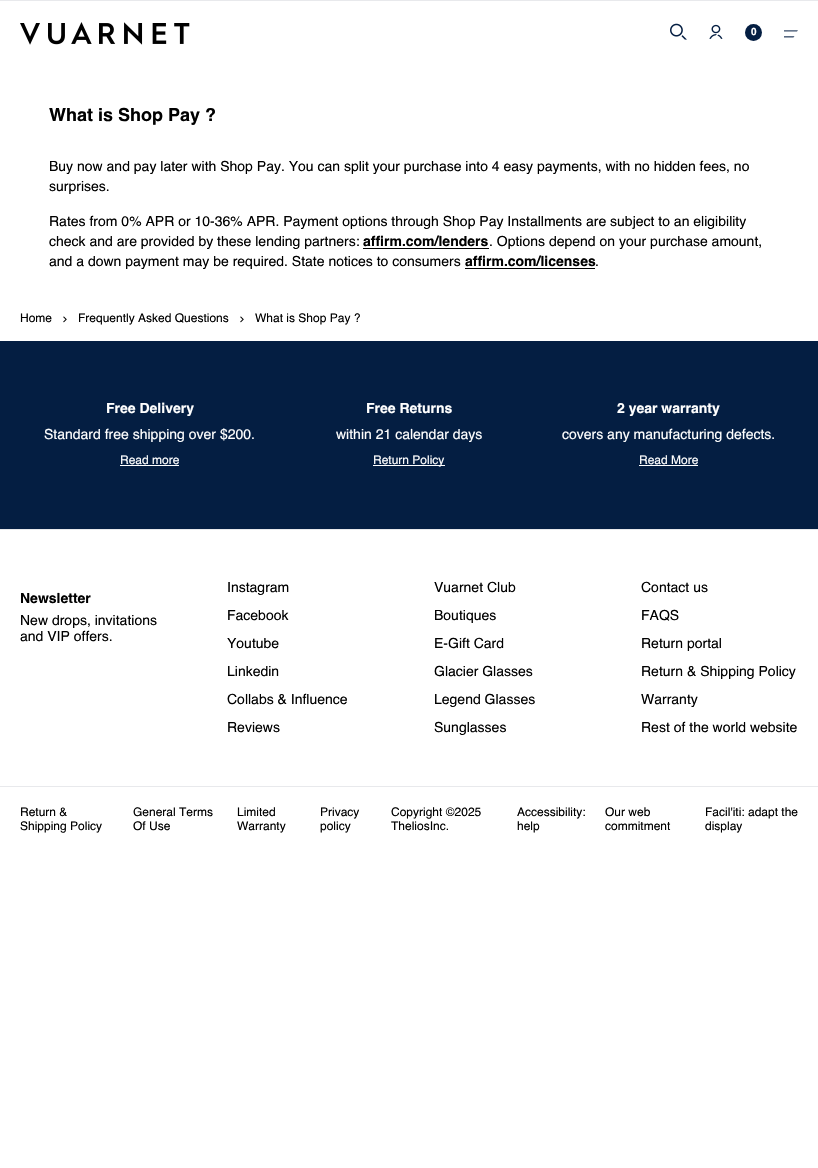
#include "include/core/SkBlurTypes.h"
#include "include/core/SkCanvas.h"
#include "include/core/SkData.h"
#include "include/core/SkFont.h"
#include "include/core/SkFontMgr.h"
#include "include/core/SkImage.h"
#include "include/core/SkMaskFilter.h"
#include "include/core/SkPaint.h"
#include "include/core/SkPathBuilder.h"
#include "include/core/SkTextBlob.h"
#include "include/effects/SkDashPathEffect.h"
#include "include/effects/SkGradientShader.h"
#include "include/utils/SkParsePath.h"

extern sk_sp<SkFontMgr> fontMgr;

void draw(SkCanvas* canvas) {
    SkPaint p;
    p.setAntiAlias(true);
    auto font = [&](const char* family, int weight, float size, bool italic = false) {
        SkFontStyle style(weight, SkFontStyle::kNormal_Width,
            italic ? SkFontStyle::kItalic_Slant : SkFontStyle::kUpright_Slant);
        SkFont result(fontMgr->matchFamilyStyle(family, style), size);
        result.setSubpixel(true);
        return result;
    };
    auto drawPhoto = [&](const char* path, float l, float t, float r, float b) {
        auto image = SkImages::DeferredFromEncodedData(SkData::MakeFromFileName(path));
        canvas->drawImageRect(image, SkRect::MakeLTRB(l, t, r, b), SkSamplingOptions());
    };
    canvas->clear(0xFFFFFFFF);
    p.setColor(0xFFE8E9EC);
    canvas->drawRect(SkRect::MakeLTRB(0, 0, 818, 1), p);
    drawPhoto("media/1.png", 20, 22, 190, 45);
    drawPhoto("media/2.png", 670, 23, 687, 40);
    drawPhoto("media/3.png", 709, 24, 723, 39);
    p.setColor(0xFF041E42);
    canvas->drawCircle(753.5f, 32.5f, 8.5f, p);
    auto font1 = font("Helvetica", 700, 10);
    p.setColor(0xFFFFFFFF);
    canvas->drawString("0", 751, 35, font1, p);
    drawPhoto("media/4.png", 784, 30, 798, 38);
    auto font2 = font("Helvetica", 700, 18);
    p.setColor(0xFF000000);
    canvas->drawString("What is Shop Pay ?", 49, 121, font2, p);
    auto font3 = font("Helvetica", 400, 14);
    {
        const struct { const char* s; float x, y; } items[] = {
            {"Buy now and pay later with Shop Pay. You can split your purchase into 4 easy payments, with no hidden fees, no", 49, 171},
            {"surprises.", 49, 191},
            {"Rates from 0% APR or 10-36% APR. Payment options through Shop Pay Installments are subject to an eligibility", 49, 226},
            {"check and are provided by these lending partners:", 49, 246},
        };
        for (auto [s, x, y] : items) {
            canvas->drawString(s, x, y, font3, p);
        }
    }
    auto font4 = font("Helvetica", 700, 14);
    canvas->drawString("affirm.com/lenders", 363, 246, font4, p);
    canvas->drawRect(SkRect::MakeLTRB(363, 248, 489, 249), p);
    canvas->drawString(". Options depend on your purchase amount,", 489, 246, font3, p);
    canvas->drawString("and a down payment may be required. State notices to consumers", 49, 266, font3, p);
    canvas->drawString("affirm.com/licenses", 465, 266, font4, p);
    canvas->drawRect(SkRect::MakeLTRB(465, 268, 595, 269), p);
    canvas->drawString(".", 595, 266, font3, p);
    auto font5 = font("Helvetica", 400, 12);
    canvas->drawString("Home", 20, 322, font5, p);
    drawPhoto("media/5.png", 63, 316, 67, 323);
    canvas->drawString("Frequently Asked Questions", 78, 322, font5, p);
    drawPhoto("media/5.png", 240, 316, 244, 323);
    canvas->drawString("What is Shop Pay ?", 255, 322, font5, p);
    p.setColor(0xFF041E42);
    canvas->drawRect(SkRect::MakeLTRB(0, 341, 818, 529), p);
    p.setColor(0xFFFFFFFF);
    canvas->drawString("Free Delivery", 106, 413, font4, p);
    canvas->drawString("Standard free shipping over $200.", 44, 439, font3, p);
    canvas->drawString("Read more", 120, 464, font5, p);
    canvas->drawRect(SkRect::MakeLTRB(120, 465, 179, 466), p);
    canvas->drawString("Free Returns", 366, 413, font4, p);
    canvas->drawString("within 21 calendar days", 336, 439, font3, p);
    canvas->drawRect(SkRect::MakeLTRB(373, 465, 445, 466), p);
    canvas->drawString("Return Policy", 373, 464, font5, p);
    canvas->drawString("2 year warranty", 617, 413, font4, p);
    canvas->drawString("covers any manufacturing defects.", 562, 439, font3, p);
    canvas->drawString("Read More", 639, 464, font5, p);
    canvas->drawRect(SkRect::MakeLTRB(639, 465, 698, 466), p);
    p.setColor(0xFFE8E9EC);
    canvas->drawRect(SkRect::MakeLTRB(0, 529, 818, 530), p);
    p.setColor(0xFF000000);
    canvas->drawString("Newsletter", 20, 603, font4, p);
    {
        const struct { const char* s; float x, y; } items[] = {
            {"New drops, invitations", 20, 625},
            {"and VIP offers.", 20, 641},
            {"Instagram", 227, 592},
            {"Facebook", 227, 620},
            {"Youtube", 227, 648},
            {"Linkedin", 227, 676},
            {"Collabs & Influence", 227, 704},
            {"Reviews", 227, 732},
            {"Vuarnet Club", 434, 592},
            {"Boutiques", 434, 620},
            {"E-Gift Card", 434, 648},
            {"Glacier Glasses", 434, 676},
            {"Legend Glasses", 434, 704},
            {"Sunglasses", 434, 732},
            {"Contact us", 641, 592},
            {"FAQS", 641, 620},
            {"Return portal", 641, 648},
            {"Return & Shipping Policy", 641, 676},
            {"Warranty", 641, 704},
            {"Rest of the world website", 641, 732},
        };
        for (auto [s, x, y] : items) {
            canvas->drawString(s, x, y, font3, p);
        }
    }
    p.setColor(0xFFE8E9EC);
    canvas->drawRect(SkRect::MakeLTRB(0, 786, 818, 787), p);
    p.setColor(0xFF000000);
    {
        const struct { const char* s; float x, y; } items[] = {
            {"Return &", 20, 816},
            {"Shipping Policy", 20, 830},
            {"General Terms", 133, 816},
            {"Of Use", 133, 830},
            {"Limited", 237, 816},
            {"Warranty", 237, 830},
            {"Privacy", 320, 816},
            {"policy", 320, 830},
            {"Copyright ©2025", 391, 816},
            {"TheliosInc.", 391, 830},
            {"Accessibility:", 517, 816},
            {"help", 517, 830},
            {"Our web", 605, 816},
            {"commitment", 605, 830},
            {"Facil'iti: adapt the", 705, 816},
            {"display", 705, 830},
        };
        for (auto [s, x, y] : items) {
            canvas->drawString(s, x, y, font5, p);
        }
    }
}
